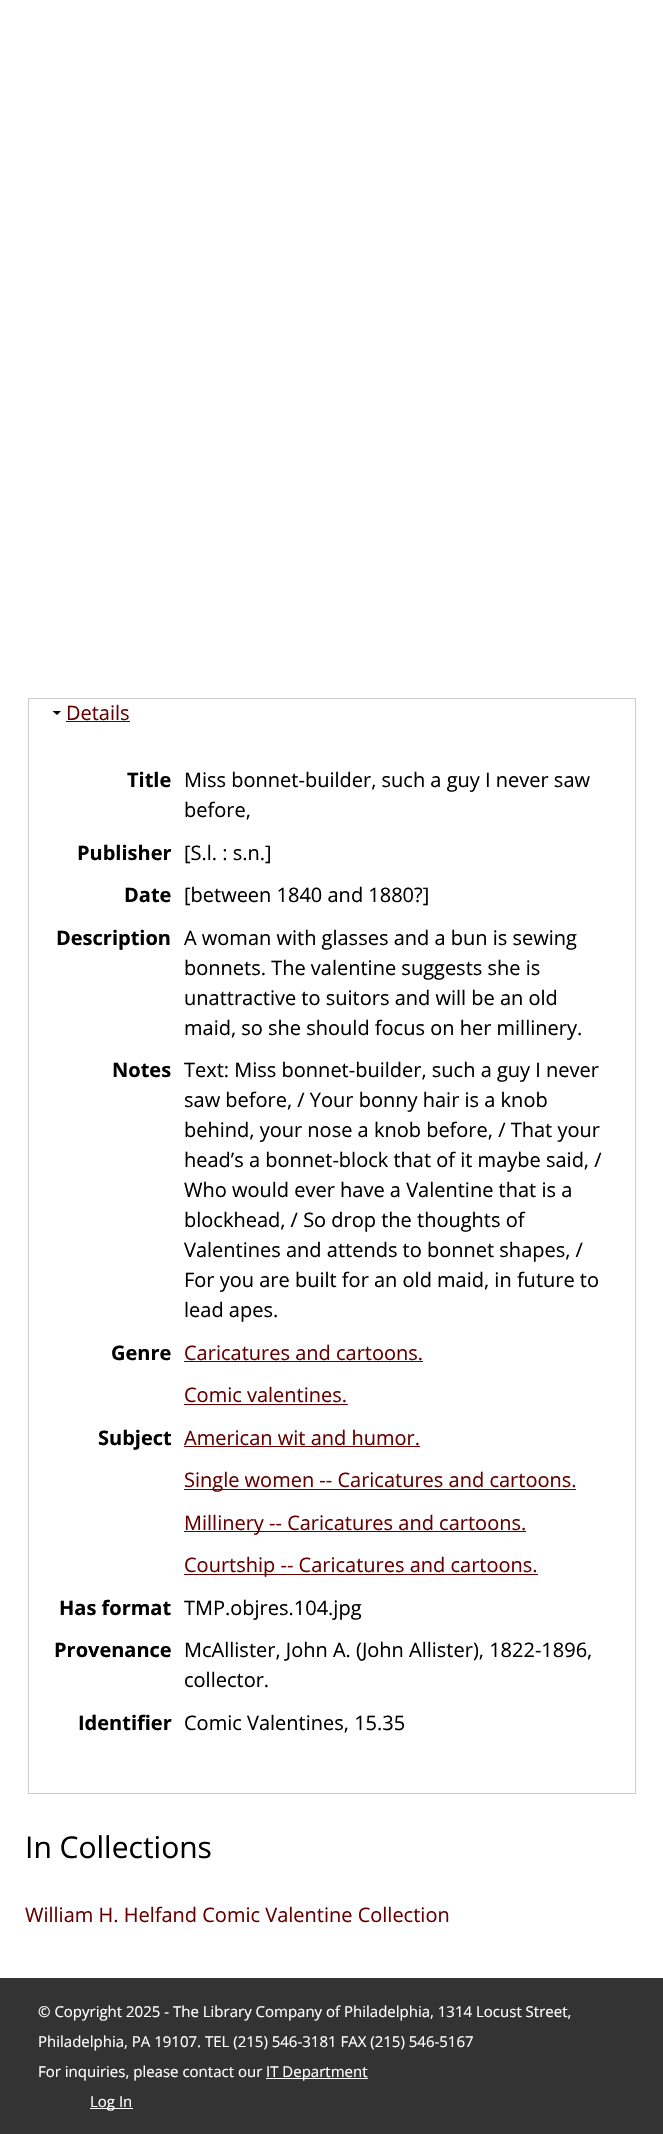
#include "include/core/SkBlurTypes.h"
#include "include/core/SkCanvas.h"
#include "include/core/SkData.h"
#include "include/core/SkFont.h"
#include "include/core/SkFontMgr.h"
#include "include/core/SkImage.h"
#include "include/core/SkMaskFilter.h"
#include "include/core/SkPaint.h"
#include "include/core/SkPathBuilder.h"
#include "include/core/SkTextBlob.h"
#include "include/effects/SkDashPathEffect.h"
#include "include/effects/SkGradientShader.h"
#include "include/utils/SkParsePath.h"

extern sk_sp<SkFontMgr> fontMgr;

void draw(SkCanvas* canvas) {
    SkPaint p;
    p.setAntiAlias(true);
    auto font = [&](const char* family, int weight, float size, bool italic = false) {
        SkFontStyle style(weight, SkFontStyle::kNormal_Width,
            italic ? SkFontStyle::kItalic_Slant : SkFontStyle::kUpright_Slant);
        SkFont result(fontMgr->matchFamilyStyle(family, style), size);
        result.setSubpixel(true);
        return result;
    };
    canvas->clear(0xFFFFFFFF);
    p.setStyle(SkPaint::kStroke_Style);
    p.setStrokeWidth(1);
    p.setColor(0xFFCCCCCC);
    canvas->drawRect(SkRect::MakeLTRB(28.5f, 698.5f, 635.5f, 1793.5f), p);
    p.setStyle(SkPaint::kFill_Style);
    p.setColor(0xFF000000);
    canvas->drawPath(SkPathBuilder().moveTo(61, 711).lineTo(57, 715).lineTo(52.5f, 711).close().detach(), p);
    auto font1 = font("Open Sans", 400, 20);
    p.setColor(0xFF660000);
    canvas->drawString("Details", 66, 720, font1, p);
    canvas->drawRect(SkRect::MakeLTRB(66, 721, 130, 722), p);
    auto font2 = font("Open Sans", 700, 20);
    p.setColor(0xFF000000);
    canvas->drawString("Title", 127, 787, font2, p);
    canvas->drawString("Miss bonnet-builder, such a guy I never saw", 184, 787, font1, p);
    canvas->drawString("before,", 184, 817, font1, p);
    canvas->drawString("Publisher", 77, 860, font2, p);
    canvas->drawString("[S.l. : s.n.]", 184, 860, font1, p);
    canvas->drawString("Date", 124, 902, font2, p);
    canvas->drawString("[between 1840 and 1880?]", 184, 902, font1, p);
    canvas->drawString("Description", 56, 945, font2, p);
    {
        const struct { const char* s; float x, y; } items[] = {
            {"A woman with glasses and a bun is sewing", 184, 945},
            {"bonnets. The valentine suggests she is", 184, 975},
            {"unattractive to suitors and will be an old", 184, 1005},
            {"maid, so she should focus on her millinery.", 184, 1035},
        };
        for (auto [s, x, y] : items) {
            canvas->drawString(s, x, y, font1, p);
        }
    }
    canvas->drawString("Notes", 112, 1077, font2, p);
    {
        const struct { const char* s; float x, y; } items[] = {
            {"Text: Miss bonnet-builder, such a guy I never", 184, 1077},
            {"saw before, / Your bonny hair is a knob", 184, 1107},
            {"behind, your nose a knob before, / That your", 184, 1137},
            {"head’s a bonnet-block that of it maybe said, /", 184, 1167},
            {"Who would ever have a Valentine that is a", 184, 1197},
            {"blockhead, / So drop the thoughts of", 184, 1227},
            {"Valentines and attends to bonnet shapes, /", 184, 1257},
            {"For you are built for an old maid, in future to", 184, 1287},
            {"lead apes.", 184, 1317},
        };
        for (auto [s, x, y] : items) {
            canvas->drawString(s, x, y, font1, p);
        }
    }
    canvas->drawString("Genre", 111, 1360, font2, p);
    p.setColor(0xFF660000);
    canvas->drawString("Caricatures and cartoons.", 184, 1360, font1, p);
    canvas->drawRect(SkRect::MakeLTRB(184, 1361, 423, 1362), p);
    canvas->drawString("Comic valentines.", 184, 1402, font1, p);
    canvas->drawRect(SkRect::MakeLTRB(184, 1404, 348, 1405), p);
    p.setColor(0xFF000000);
    canvas->drawString("Subject", 98, 1445, font2, p);
    p.setColor(0xFF660000);
    canvas->drawString("American wit and humor.", 184, 1445, font1, p);
    canvas->drawRect(SkRect::MakeLTRB(184, 1446, 420, 1447), p);
    canvas->drawRect(SkRect::MakeLTRB(184, 1489, 576, 1490), p);
    canvas->drawString("Single women -- Caricatures and cartoons.", 184, 1487, font1, p);
    canvas->drawRect(SkRect::MakeLTRB(184, 1531, 526, 1532), p);
    canvas->drawString("Millinery -- Caricatures and cartoons.", 184, 1530, font1, p);
    canvas->drawRect(SkRect::MakeLTRB(184, 1574, 538, 1575), p);
    canvas->drawString("Courtship -- Caricatures and cartoons.", 184, 1572, font1, p);
    p.setColor(0xFF000000);
    canvas->drawString("Has format", 59, 1615, font2, p);
    canvas->drawString("TMP.objres.104.jpg", 184, 1615, font1, p);
    canvas->drawString("Provenance", 54, 1657, font2, p);
    canvas->drawString("McAllister, John A. (John Allister), 1822-1896,", 184, 1657, font1, p);
    canvas->drawString("collector.", 184, 1687, font1, p);
    canvas->drawString("Identifier", 78, 1730, font2, p);
    canvas->drawString("Comic Valentines, 15.35", 184, 1730, font1, p);
    auto font3 = font("Open Sans", 400, 30);
    canvas->drawString("In Collections", 25, 1858, font3, p);
    p.setColor(0xFF660000);
    canvas->drawString("William H. Helfand Comic Valentine Collection", 25, 1922, font1, p);
    p.setColor(0xFF333333);
    canvas->drawRect(SkRect::MakeLTRB(0, 1978, 663, 2134), p);
    auto font4 = font("Open Sans", 400, 15);
    p.setColor(0xFFFFFFFF);
    {
        const struct { const char* s; float x, y; } items[] = {
            {"© Copyright 2025 - The Library Company of Philadelphia, 1314 Locust Street,", 38, 2017},
            {"Philadelphia, PA 19107. TEL (215) 546-3181 FAX (215) 546-5167", 38, 2047},
            {"For inquiries, please contact our", 38, 2077},
        };
        for (auto [s, x, y] : items) {
            canvas->drawString(s, x, y, font4, p);
        }
    }
    canvas->drawRect(SkRect::MakeLTRB(266, 2078, 368, 2079), p);
    canvas->drawString("IT Department", 266, 2077, font4, p);
    canvas->drawRect(SkRect::MakeLTRB(90, 2108, 133, 2109), p);
    canvas->drawString("Log In", 90, 2107, font4, p);
}
